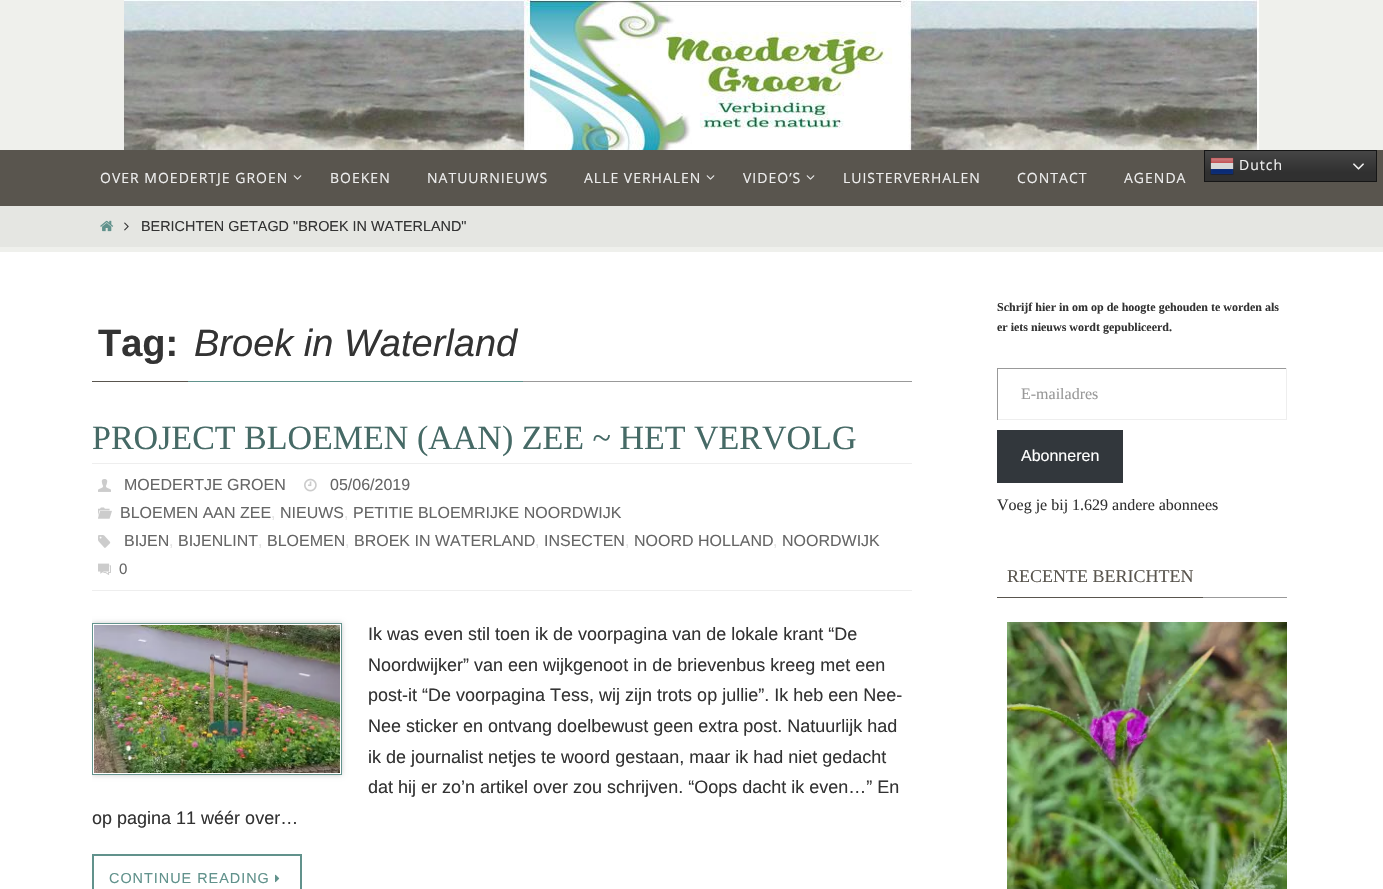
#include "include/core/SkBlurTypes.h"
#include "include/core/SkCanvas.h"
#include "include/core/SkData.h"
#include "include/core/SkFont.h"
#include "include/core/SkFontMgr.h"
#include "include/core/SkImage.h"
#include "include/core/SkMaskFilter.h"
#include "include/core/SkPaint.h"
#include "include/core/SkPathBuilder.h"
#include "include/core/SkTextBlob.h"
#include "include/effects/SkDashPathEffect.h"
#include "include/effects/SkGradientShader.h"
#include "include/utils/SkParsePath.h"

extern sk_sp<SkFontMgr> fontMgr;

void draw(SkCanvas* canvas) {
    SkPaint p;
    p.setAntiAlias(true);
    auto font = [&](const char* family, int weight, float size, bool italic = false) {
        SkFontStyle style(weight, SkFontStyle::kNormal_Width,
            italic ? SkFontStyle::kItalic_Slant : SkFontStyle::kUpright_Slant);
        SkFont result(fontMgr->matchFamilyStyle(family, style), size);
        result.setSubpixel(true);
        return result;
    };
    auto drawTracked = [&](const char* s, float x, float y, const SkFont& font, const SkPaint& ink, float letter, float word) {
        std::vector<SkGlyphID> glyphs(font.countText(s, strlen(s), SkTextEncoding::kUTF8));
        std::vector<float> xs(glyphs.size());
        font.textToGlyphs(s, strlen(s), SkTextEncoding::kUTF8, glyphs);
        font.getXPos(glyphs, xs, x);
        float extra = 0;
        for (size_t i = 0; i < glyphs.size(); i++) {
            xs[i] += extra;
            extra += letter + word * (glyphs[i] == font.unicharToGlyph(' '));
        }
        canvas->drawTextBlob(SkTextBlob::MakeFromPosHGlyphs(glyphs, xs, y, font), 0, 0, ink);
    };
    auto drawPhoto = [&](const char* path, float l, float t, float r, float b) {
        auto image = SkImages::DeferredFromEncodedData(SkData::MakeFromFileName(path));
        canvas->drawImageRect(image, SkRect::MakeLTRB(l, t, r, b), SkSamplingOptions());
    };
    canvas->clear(0xFFEFF0EC);
    drawPhoto("media/1.png", 124, 0, 1259, 150);
    p.setColor(0xFF59554E);
    canvas->drawRect(SkRect::MakeLTRB(0, 150, 1383, 206), p);
    {
        const SkColor colors[] = {0xFF474747, 0xFF303030};
        const float stops[] = {0, 0.7f};
        const SkPoint ends[] = {{1291, 150}, {1291, 182}};
        p.setShader(SkGradientShader::MakeLinear(ends, colors, stops, 2, SkTileMode::kClamp));
        p.setAlpha(255);
    }
    canvas->drawRect(SkRect::MakeLTRB(1205, 151, 1376, 181), p);
    p.setStyle(SkPaint::kStroke_Style);
    p.setStrokeWidth(1);
    p.setShader(nullptr);
    p.setColor(0xFF161616);
    canvas->drawRect(SkRect::MakeLTRB(1204.5f, 150.5f, 1376.5f, 181.5f), p);
    drawPhoto("media/2.png", 1210, 157, 1234, 175);
    auto font1 = font("Open Sans", 400, 14);
    p.setStyle(SkPaint::kFill_Style);
    p.setColor(0xFFEEEEEE);
    drawTracked("Dutch", 1239, 170, font1, p, 1, 0);
    drawPhoto("media/3.png", 1353, 163, 1364, 170);
    drawTracked("OVER MOEDERTJE GROEN", 100, 183, font1, p, 1, 0);
    drawPhoto("media/4.png", 293, 175, 302, 180);
    {
        const struct { const char* s; float x, y; } items[] = {
            {"BOEKEN", 330, 183},
            {"NATUURNIEUWS", 427, 183},
            {"ALLE VERHALEN", 584, 183},
        };
        for (auto [s, x, y] : items) {
            drawTracked(s, x, y, font1, p, 1, 0);
        }
    }
    drawPhoto("media/4.png", 706, 175, 715, 180);
    drawTracked("VIDEO’S", 743, 183, font1, p, 1, 0);
    drawPhoto("media/4.png", 806, 175, 815, 180);
    {
        const struct { const char* s; float x, y; } items[] = {
            {"LUISTERVERHALEN", 843, 183},
            {"CONTACT", 1017, 183},
            {"AGENDA", 1124, 183},
        };
        for (auto [s, x, y] : items) {
            drawTracked(s, x, y, font1, p, 1, 0);
        }
    }
    p.setColor(0xFFE5E6E2);
    canvas->drawRect(SkRect::MakeLTRB(0, 206, 1383, 247), p);
    drawPhoto("media/5.png", 100, 220, 114, 232);
    drawPhoto("media/6.png", 124, 222, 129, 231);
    auto font2 = font("Liberation Sans", 400, 14.4f);
    p.setColor(0xFF333333);
    canvas->drawString("BERICHTEN GETAGD \"BROEK IN WATERLAND\"", 141, 231, font2, p);
    {
        const struct { float l, t, r, b; SkColor color; } items[] = {
            {0, 252, 1383, 889, 0xFFFFFFFF},
            {523, 381, 912, 382, 0xFF999999},
            {92, 381, 188, 382, 0xFF59554E},
        };
        for (auto [l, t, r, b, color] : items) {
            p.setColor(color);
            canvas->drawRect(SkRect::MakeLTRB(l, t, r, b), p);
        }
    }
    auto font3 = font("Liberation Sans", 700, 38);
    p.setColor(0xFF333333);
    canvas->drawString("Tag:", 98, 356, font3, p);
    p.setColor(0xFF61928C);
    canvas->drawRect(SkRect::MakeLTRB(188, 381, 523, 382), p);
    auto font4 = font("Liberation Sans", 400, 38, true);
    p.setColor(0xFF333333);
    canvas->drawString("Broek in Waterland", 194, 356, font4, p);
    auto font5 = font("Liberation Serif", 400, 34);
    p.setColor(0xFF466A66);
    canvas->drawString("PROJECT BLOEMEN (AAN) ZEE ~ HET VERVOLG", 92, 449, font5, p);
    p.setColor(0xFFEEEEEE);
    canvas->drawRect(SkRect::MakeLTRB(92, 463, 912, 464), p);
    canvas->drawRect(SkRect::MakeLTRB(92, 590, 912, 591), p);
    drawPhoto("media/7.png", 98, 479, 111, 492);
    auto font6 = font("Liberation Sans", 400, 16);
    p.setColor(0xFF666666);
    canvas->drawString("MOEDERTJE GROEN", 124, 490, font6, p);
    drawPhoto("media/8.png", 304, 478, 317, 492);
    canvas->drawString("05/06/2019", 330, 490, font6, p);
    drawPhoto("media/9.png", 98, 507, 112, 519);
    canvas->drawString("BLOEMEN AAN ZEE", 120, 518, font6, p);
    p.setColor(0xFFE3E3E3);
    canvas->drawString(",", 271, 518, font6, p);
    p.setColor(0xFF666666);
    canvas->drawString("NIEUWS", 280, 518, font6, p);
    p.setColor(0xFFE3E3E3);
    canvas->drawString(",", 344, 518, font6, p);
    p.setColor(0xFF666666);
    canvas->drawString("PETITIE BLOEMRIJKE NOORDWIJK", 353, 518, font6, p);
    drawPhoto("media/10.png", 98, 535, 111, 548);
    canvas->drawString("BIJEN", 124, 546, font6, p);
    p.setColor(0xFFE3E3E3);
    canvas->drawString(",", 169, 546, font6, p);
    p.setColor(0xFF666666);
    canvas->drawString("BIJENLINT", 178, 546, font6, p);
    p.setColor(0xFFE3E3E3);
    canvas->drawString(",", 258, 546, font6, p);
    p.setColor(0xFF666666);
    canvas->drawString("BLOEMEN", 267, 546, font6, p);
    p.setColor(0xFFE3E3E3);
    canvas->drawString(",", 345, 546, font6, p);
    p.setColor(0xFF666666);
    canvas->drawString("BROEK IN WATERLAND", 354, 546, font6, p);
    p.setColor(0xFFE3E3E3);
    canvas->drawString(",", 535, 546, font6, p);
    p.setColor(0xFF666666);
    canvas->drawString("INSECTEN", 544, 546, font6, p);
    p.setColor(0xFFE3E3E3);
    canvas->drawString(",", 625, 546, font6, p);
    p.setColor(0xFF666666);
    canvas->drawString("NOORD HOLLAND", 634, 546, font6, p);
    p.setColor(0xFFE3E3E3);
    canvas->drawString(",", 773, 546, font6, p);
    p.setColor(0xFF666666);
    canvas->drawString("NOORDWIJK", 782, 546, font6, p);
    drawPhoto("media/11.png", 98, 563, 111, 575);
    auto font7 = font("Liberation Sans", 400, 15);
    canvas->drawString("0", 119, 574, font7, p);
    canvas->save();
    canvas->clipRect(SkRect::MakeLTRB(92, 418, 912, 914));
    canvas->clipPath(SkPathBuilder(SkPathFillType::kEvenOdd).moveTo(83, 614).lineTo(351, 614).lineTo(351, 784).lineTo(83, 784).close().moveTo(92, 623).lineTo(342, 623).lineTo(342, 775).lineTo(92, 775).close().detach(), true);
    p.setColor(0xFFCDCDCD);
    p.setMaskFilter(SkMaskFilter::MakeBlur(kNormal_SkBlurStyle, 2.5f));
    canvas->drawRect(SkRect::MakeLTRB(92, 623, 342, 775), p);
    p.setMaskFilter(nullptr);
    canvas->restore();
    p.setStyle(SkPaint::kStroke_Style);
    p.setColor(0xFF63938D);
    canvas->drawRect(SkRect::MakeLTRB(92.5f, 623.5f, 341.5f, 774.5f), p);
    drawPhoto("media/12.png", 94, 625, 340, 773);
    auto font8 = font("Liberation Sans", 400, 18);
    p.setStyle(SkPaint::kFill_Style);
    p.setColor(0xFF333333);
    {
        const struct { const char* s; float x, y; } items[] = {
            {"Ik was even stil toen ik de voorpagina van de lokale krant “De", 368, 640},
            {"Noordwijker” van een wijkgenoot in de brievenbus kreeg met een", 368, 671},
            {"post-it “De voorpagina Tess, wij zijn trots op jullie”. Ik heb een Nee-", 368, 701},
            {"Nee sticker en ontvang doelbewust geen extra post. Natuurlijk had", 368, 732},
            {"ik de journalist netjes te woord gestaan, maar ik had niet gedacht", 368, 763},
            {"dat hij er zo’n artikel over zou schrijven. “Oops dacht ik even…” En", 368, 793},
            {"op pagina 11 wéér over…", 92, 824},
        };
        for (auto [s, x, y] : items) {
            canvas->drawString(s, x, y, font8, p);
        }
    }
    p.setStyle(SkPaint::kStroke_Style);
    p.setStrokeWidth(2);
    p.setColor(0xFF61928C);
    canvas->drawRect(SkRect::MakeLTRB(93, 855, 301, 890), p);
    p.setStyle(SkPaint::kFill_Style);
    drawTracked("CONTINUE READING", 109, 883, font2, p, 1, 0);
    drawPhoto("media/13.png", 275, 874, 280, 883);
    auto font9 = font("Liberation Serif", 700, 12);
    p.setColor(0xFF333333);
    canvas->drawString("Schrijf hier in om op de hoogte gehouden te worden als", 997, 311, font9, p);
    canvas->drawString("er iets nieuws wordt gepubliceerd.", 997, 331, font9, p);
    {
        const struct { float l, t, r, b; SkColor color; } items[] = {
            {997, 368, 1287, 369, 0xFF999999},
            {1286, 368, 1287, 420, 0xFFEEEEEE},
            {997, 419, 1287, 420, 0xFFEEEEEE},
            {997, 368, 998, 420, 0xFF999999},
        };
        for (auto [l, t, r, b, color] : items) {
            p.setColor(color);
            canvas->drawRect(SkRect::MakeLTRB(l, t, r, b), p);
        }
    }
    auto font10 = font("Liberation Serif", 400, 16);
    canvas->drawString("E-mailadres", 1021, 399, font10, p);
    p.setColor(0xFF32373C);
    canvas->drawRect(SkRect::MakeLTRB(997, 430, 1123, 483), p);
    p.setColor(0xFFFFFFFF);
    canvas->drawString("Abonneren", 1021, 461, font6, p);
    p.setColor(0xFF333333);
    canvas->drawString("Voeg je bij 1.629 andere abonnees", 997, 510, font10, p);
    p.setColor(0xFF999999);
    canvas->drawRect(SkRect::MakeLTRB(1203, 597, 1287, 598), p);
    p.setColor(0xFF59554E);
    canvas->drawRect(SkRect::MakeLTRB(997, 597, 1203, 598), p);
    auto font11 = font("Liberation Serif", 400, 18);
    canvas->drawString("RECENTE BERICHTEN", 1007, 582, font11, p);
    drawPhoto("media/14.png", 1007, 622, 1287, 889);
}
